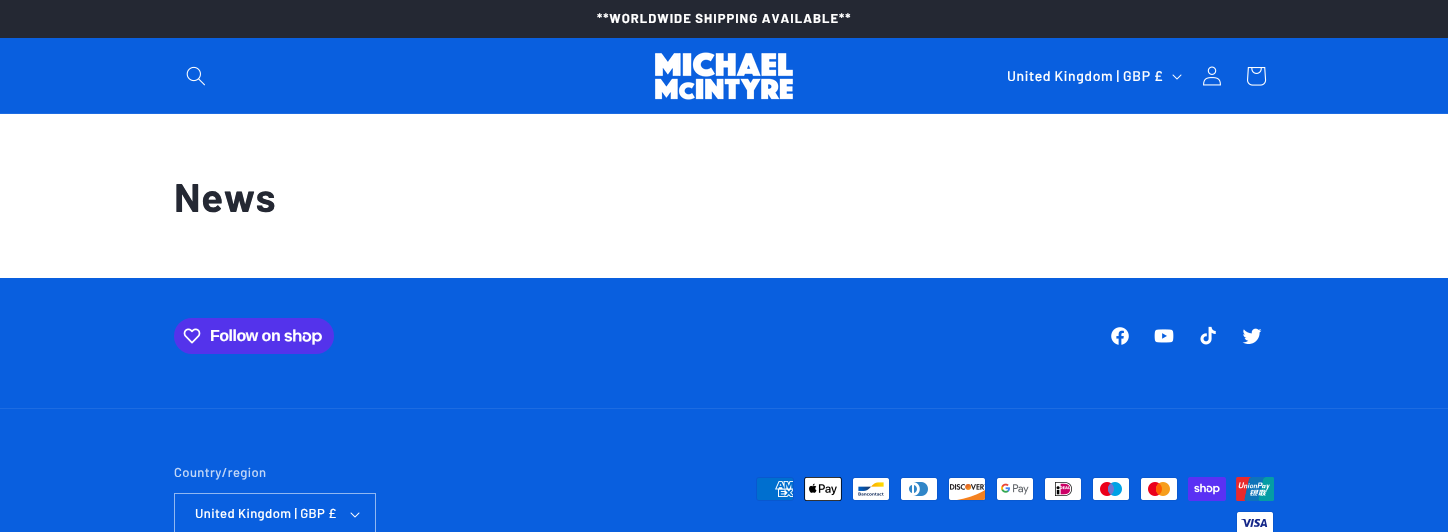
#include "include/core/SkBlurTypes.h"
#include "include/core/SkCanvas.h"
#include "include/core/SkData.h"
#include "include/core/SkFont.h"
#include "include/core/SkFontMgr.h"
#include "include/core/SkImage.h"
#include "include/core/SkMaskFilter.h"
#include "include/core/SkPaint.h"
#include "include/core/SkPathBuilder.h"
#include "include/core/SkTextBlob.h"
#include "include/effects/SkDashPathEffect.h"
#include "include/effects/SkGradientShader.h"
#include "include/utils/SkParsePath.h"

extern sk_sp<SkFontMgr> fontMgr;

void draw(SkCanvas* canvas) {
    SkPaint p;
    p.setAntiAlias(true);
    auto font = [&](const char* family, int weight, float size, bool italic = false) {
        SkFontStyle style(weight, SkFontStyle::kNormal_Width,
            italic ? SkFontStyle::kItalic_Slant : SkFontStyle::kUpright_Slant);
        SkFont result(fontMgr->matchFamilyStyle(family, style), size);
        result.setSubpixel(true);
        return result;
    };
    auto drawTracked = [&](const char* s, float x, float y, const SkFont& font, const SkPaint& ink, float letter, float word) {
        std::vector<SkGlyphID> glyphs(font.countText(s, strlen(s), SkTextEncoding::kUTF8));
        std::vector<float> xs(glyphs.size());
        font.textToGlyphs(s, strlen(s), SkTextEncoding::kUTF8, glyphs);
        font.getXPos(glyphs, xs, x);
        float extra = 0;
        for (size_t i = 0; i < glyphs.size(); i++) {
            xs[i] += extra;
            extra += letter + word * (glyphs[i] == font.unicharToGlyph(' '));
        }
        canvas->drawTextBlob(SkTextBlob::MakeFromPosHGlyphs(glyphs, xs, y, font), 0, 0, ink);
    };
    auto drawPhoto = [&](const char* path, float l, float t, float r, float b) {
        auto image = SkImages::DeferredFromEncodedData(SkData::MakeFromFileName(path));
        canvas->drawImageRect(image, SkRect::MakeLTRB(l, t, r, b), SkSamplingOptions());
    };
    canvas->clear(0xFFFFFFFF);
    p.setColor(0xFF242833);
    canvas->drawRect(SkRect::MakeLTRB(0, 0, 1448, 38), p);
    auto font1 = font("Barlow", 700, 13);
    p.setColor(0xFFFFFFFF);
    drawTracked("**WORLDWIDE SHIPPING AVAILABLE**", 597, 23, font1, p, 1, 0);
    p.setColor(0xFF095FDF);
    canvas->drawRect(SkRect::MakeLTRB(0, 38, 1448, 113), p);
    p.setColor(0xFF1D6CE2);
    canvas->drawRect(SkRect::MakeLTRB(0, 113, 1448, 114), p);
    drawPhoto("media/1.png", 186, 66, 205, 86);
    drawPhoto("media/2.png", 655, 52, 793, 100);
    auto font2 = font("Barlow", 500, 14);
    p.setColor(0xFFFFFFFF);
    drawTracked("United Kingdom | GBP £", 1007, 81, font2, p, 0.6f, 0);
    drawPhoto("media/3.png", 1172, 74, 1182, 80);
    drawPhoto("media/4.png", 1203, 66, 1221, 86);
    drawPhoto("media/5.png", 1247, 67, 1267, 86);
    auto font3 = font("Barlow", 700, 40);
    p.setColor(0xFF242833);
    drawTracked("News", 174, 212, font3, p, 0.6f, 0);
    p.setColor(0xFF095FDF);
    canvas->drawRect(SkRect::MakeLTRB(0, 278, 1448, 532), p);
    p.setColor(0xFF5433EB);
    canvas->drawRoundRect(SkRect::MakeLTRB(174, 318, 334, 354), 18, 18, p);
    drawPhoto("media/6.png", 183, 328, 201, 344);
    auto font4 = font("Liberation Sans", 700, 16);
    p.setColor(0xFFFFFFFF);
    drawTracked("Follow on", 210, 341, font4, p, -0.5f, 0);
    drawPhoto("media/7.png", 284, 329, 322, 345);
    drawPhoto("media/8.png", 1111, 327, 1129, 345);
    drawPhoto("media/9.png", 1154, 329, 1174, 343);
    drawPhoto("media/10.png", 1200, 326, 1216, 345);
    drawPhoto("media/11.png", 1242, 328, 1262, 344);
    p.setColor(0xFF1D6CE2);
    canvas->drawRect(SkRect::MakeLTRB(0, 408, 1448, 409), p);
    auto font5 = font("Barlow", 500, 13);
    p.setColor(0xFFC2D7F7);
    drawTracked("Country/region", 174, 477, font5, p, 0.4f, 0);
    drawPhoto("media/3.png", 350, 512, 360, 518);
    p.setStyle(SkPaint::kStroke_Style);
    p.setStrokeWidth(1);
    p.setColor(0xFF90B7F1);
    canvas->drawRect(SkRect::MakeLTRB(174.5f, 493.5f, 375.5f, 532.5f), p);
    p.setStyle(SkPaint::kFill_Style);
    p.setColor(0xFFFFFFFF);
    drawTracked("United Kingdom | GBP £", 195, 518, font5, p, 0.4f, 0);
    drawPhoto("media/12.png", 756, 477, 794, 501);
    drawPhoto("media/13.png", 804, 477, 842, 501);
    drawPhoto("media/14.png", 852, 477, 890, 501);
    drawPhoto("media/15.png", 900, 477, 938, 501);
    drawPhoto("media/16.png", 948, 477, 986, 501);
    drawPhoto("media/17.png", 996, 477, 1034, 501);
    drawPhoto("media/18.png", 1044, 477, 1082, 501);
    drawPhoto("media/19.png", 1092, 477, 1130, 501);
    drawPhoto("media/20.png", 1140, 477, 1178, 501);
    drawPhoto("media/21.png", 1188, 477, 1226, 501);
    drawPhoto("media/22.png", 1236, 477, 1274, 501);
    drawPhoto("media/23.png", 1236, 511, 1274, 532);
}
